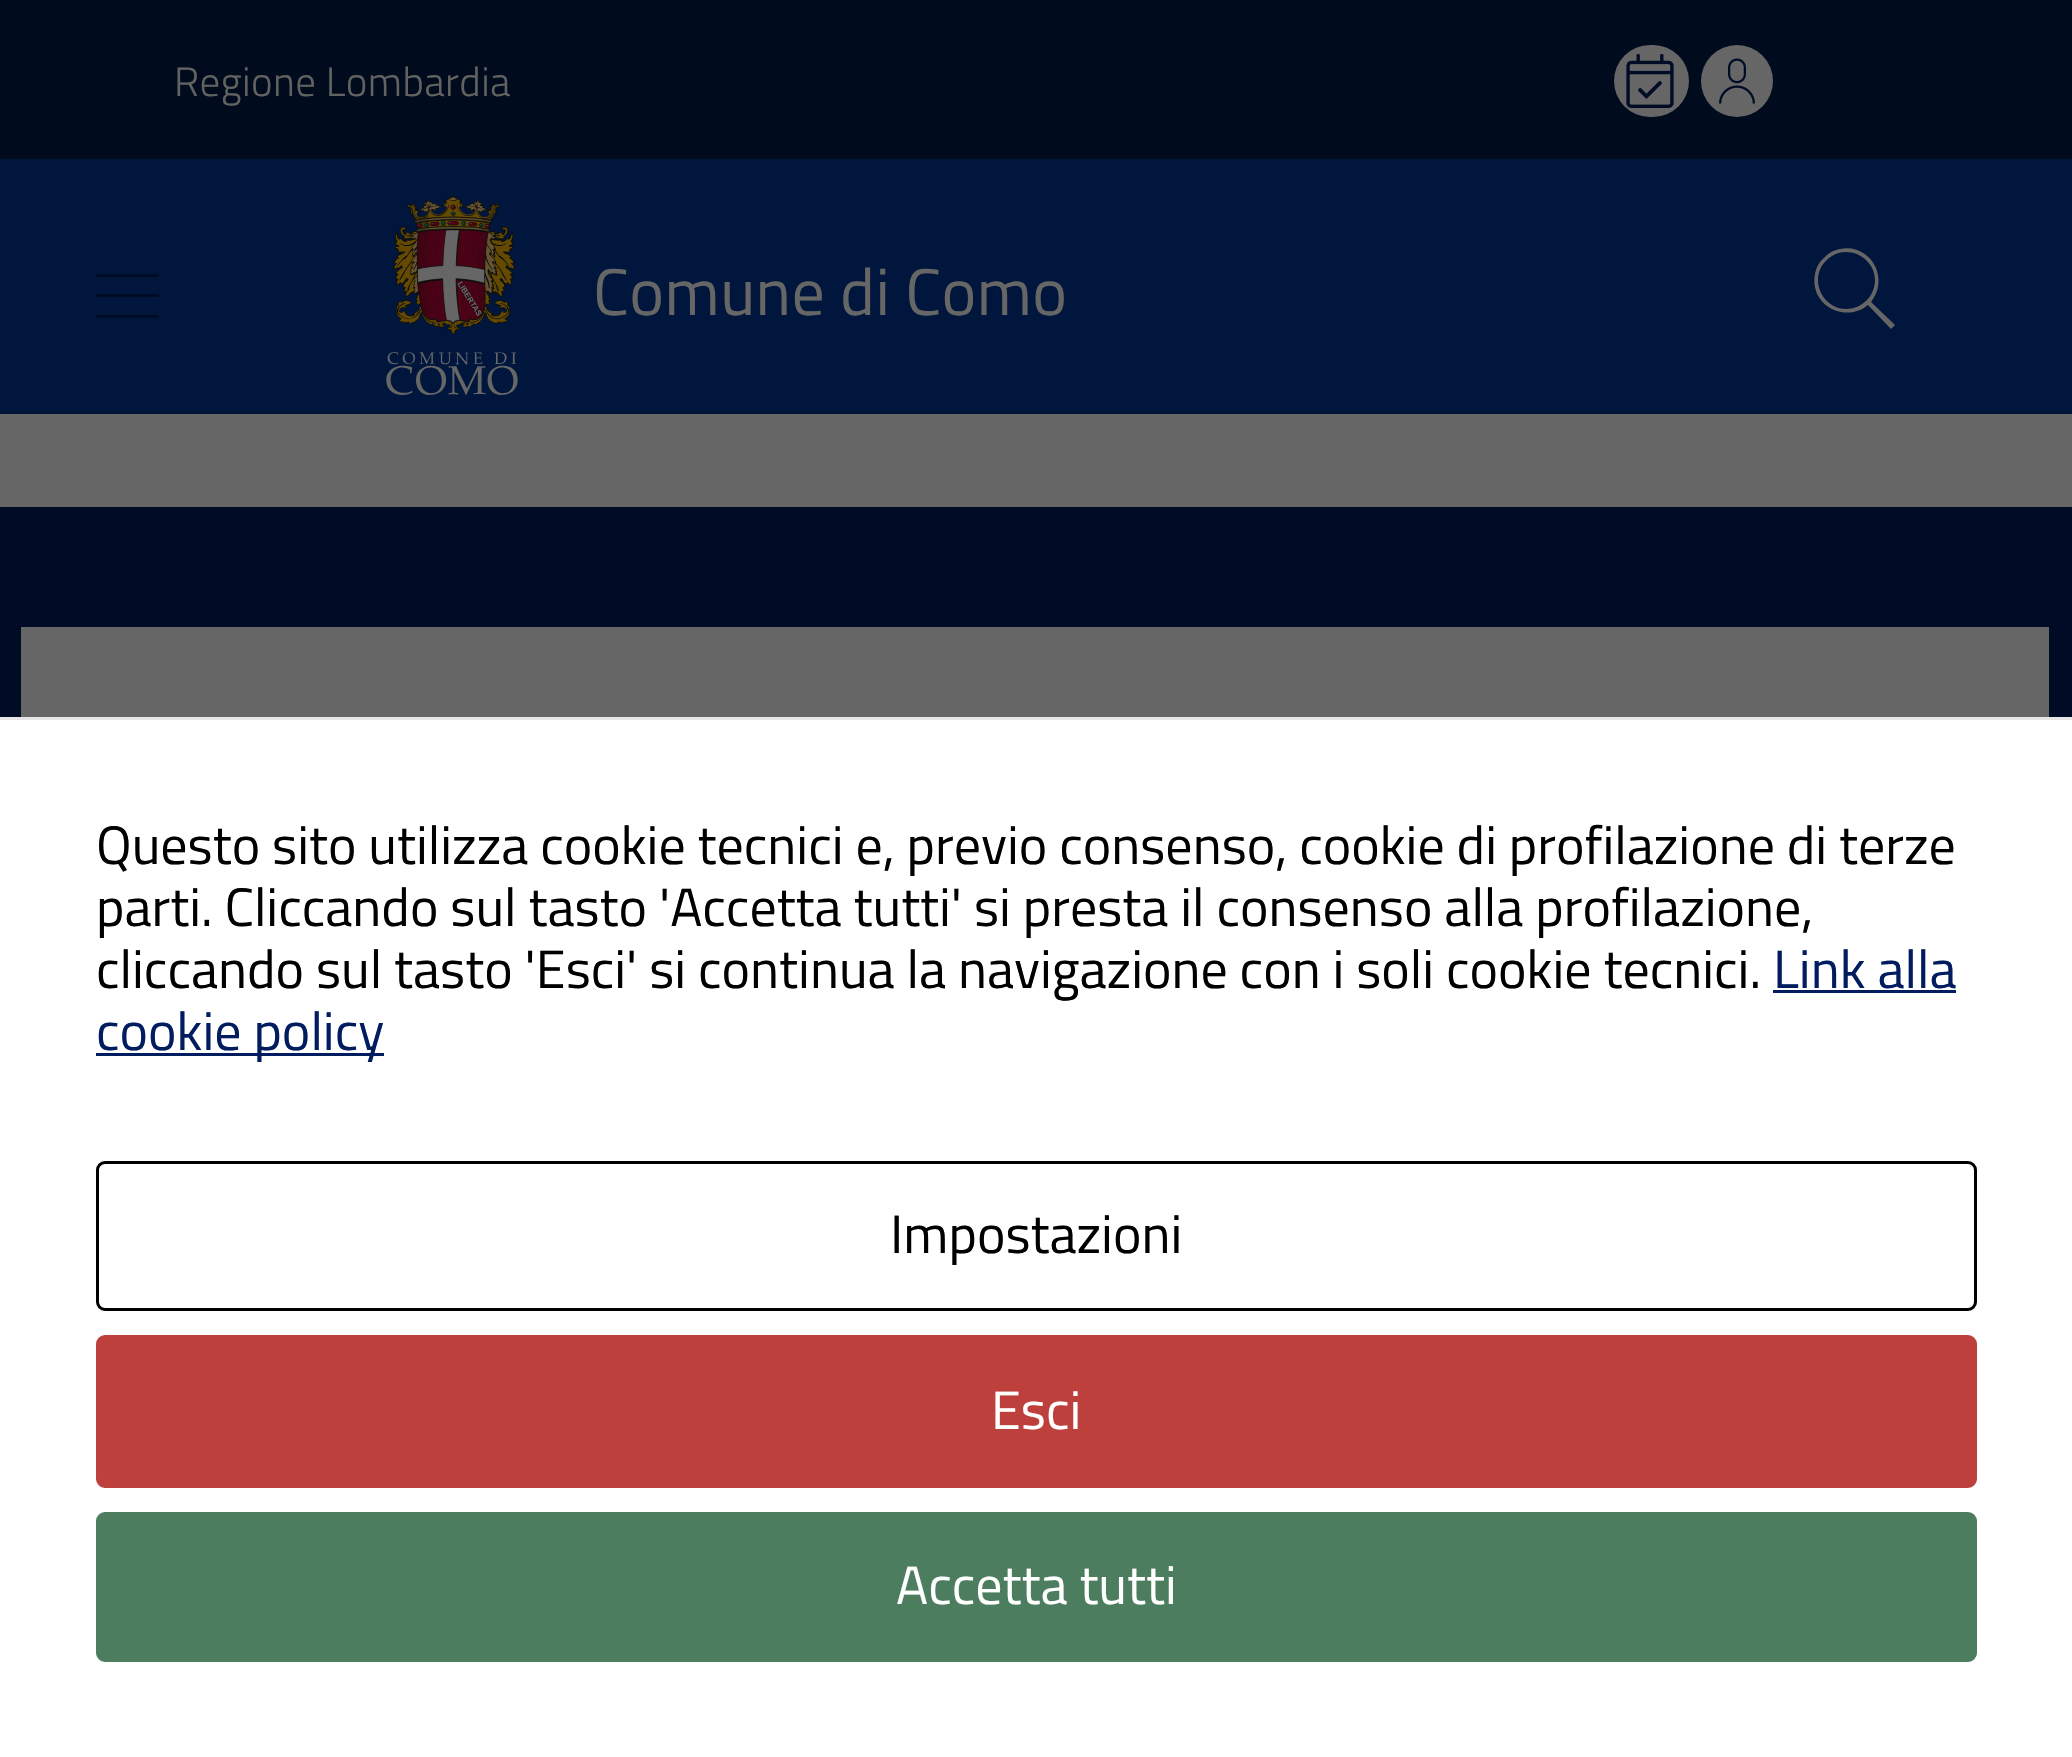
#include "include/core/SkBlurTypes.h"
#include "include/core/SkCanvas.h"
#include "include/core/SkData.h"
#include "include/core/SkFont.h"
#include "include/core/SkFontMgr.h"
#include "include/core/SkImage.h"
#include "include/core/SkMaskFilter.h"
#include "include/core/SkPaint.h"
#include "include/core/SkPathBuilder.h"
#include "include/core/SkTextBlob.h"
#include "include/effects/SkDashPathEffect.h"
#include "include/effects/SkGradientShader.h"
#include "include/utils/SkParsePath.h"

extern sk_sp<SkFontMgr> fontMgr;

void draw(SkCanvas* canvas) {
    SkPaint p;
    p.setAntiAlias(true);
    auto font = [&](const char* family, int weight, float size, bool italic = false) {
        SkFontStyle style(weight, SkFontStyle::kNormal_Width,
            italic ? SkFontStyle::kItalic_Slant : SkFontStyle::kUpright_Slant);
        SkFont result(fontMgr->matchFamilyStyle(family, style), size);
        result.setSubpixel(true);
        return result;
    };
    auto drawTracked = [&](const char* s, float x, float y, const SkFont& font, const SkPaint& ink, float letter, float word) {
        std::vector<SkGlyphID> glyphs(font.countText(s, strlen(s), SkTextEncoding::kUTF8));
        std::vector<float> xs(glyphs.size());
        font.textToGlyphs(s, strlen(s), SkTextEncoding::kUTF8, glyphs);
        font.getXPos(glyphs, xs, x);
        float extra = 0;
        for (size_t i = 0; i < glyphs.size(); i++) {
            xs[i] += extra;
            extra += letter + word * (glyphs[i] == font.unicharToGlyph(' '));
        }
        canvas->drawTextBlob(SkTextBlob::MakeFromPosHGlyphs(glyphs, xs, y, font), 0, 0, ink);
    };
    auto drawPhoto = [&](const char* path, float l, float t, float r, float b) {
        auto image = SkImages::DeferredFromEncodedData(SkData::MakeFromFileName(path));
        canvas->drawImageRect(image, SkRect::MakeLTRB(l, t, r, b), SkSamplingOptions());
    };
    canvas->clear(0xFF666666);
    p.setColor(0xFF000C1E);
    canvas->drawRect(SkRect::MakeLTRB(0, 0, 2072, 159), p);
    auto font1 = font("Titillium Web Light", 300, 41);
    p.setColor(0xFF626260);
    drawTracked("Regione Lombardia", 174, 96, font1, p, 0.4f, 0);
    p.setColor(0xFF666666);
    canvas->drawRoundRect(SkRect::MakeLTRB(1614, 45, 1689, 117), 36, 36, p);
    drawPhoto("media/1.png", 1626, 54, 1674, 108);
    canvas->drawCircle(1737, 81, 36, p);
    drawPhoto("media/2.png", 1719, 58, 1755, 104);
    p.setColor(0xFF00163D);
    canvas->drawRect(SkRect::MakeLTRB(0, 159, 2072, 411), p);
    p.setColor(0xFF001437);
    canvas->drawRect(SkRect::MakeLTRB(0, 411, 2072, 414), p);
    p.setColor(0xFF000B26);
    canvas->drawPath(SkPathBuilder().moveTo(159, 274).lineTo(159, 277).lineTo(96, 277).lineTo(96, 274).close().moveTo(96, 297).lineTo(159, 297).lineTo(159, 294).lineTo(96, 294).close().moveTo(96, 318).lineTo(159, 318).lineTo(159, 315).lineTo(96, 315).close().detach(), p);
    drawPhoto("media/3.png", 386, 195, 518, 395);
    auto font2 = font("Titillium Web", 400, 66);
    p.setColor(0xFF666666);
    drawTracked("Comune di Como", 593, 315, font2, p, 0.4f, 0);
    canvas->drawPath(SkPathBuilder().moveTo(1895, 325).lineTo(1871, 302).cubicTo(1890, 279, 1871, 243, 1840, 249).cubicTo(1834, 250, 1828, 253, 1824, 258).cubicTo(1819, 262, 1816, 268, 1815, 274).cubicTo(1809, 305, 1845, 324, 1868, 305).lineTo(1891, 329).close().moveTo(1846, 309).cubicTo(1831, 309, 1818, 296, 1818, 280).cubicTo(1818, 265, 1831, 252, 1846, 252).cubicTo(1862, 252, 1875, 265, 1875, 280).cubicTo(1875, 296, 1862, 309, 1846, 309).close().detach(), p);
    {
        const struct { float l, t, r, b; SkColor color; } items[] = {
            {0, 507, 2072, 717, 0xFF000B26},
            {21, 627, 2049, 717, 0xFF666666},
            {0, 720, 2072, 1757, 0xFFFFFFFF},
            {0, 717, 2072, 720, 0xFFE6E6E6},
        };
        for (auto [l, t, r, b, color] : items) {
            p.setColor(color);
            canvas->drawRect(SkRect::MakeLTRB(l, t, r, b), p);
        }
    }
    auto font3 = font("Titillium Web", 400, 54);
    p.setColor(0xFF000000);
    {
        const struct { const char* s; float x, y; } items[] = {
            {"Questo sito utilizza cookie tecnici e, previo consenso, cookie di profilazione di terze", 96, 864},
            {"parti. Cliccando sul tasto 'Accetta tutti' si presta il consenso alla profilazione,", 96, 926},
            {"cliccando sul tasto 'Esci' si continua la navigazione con i soli cookie tecnici.", 96, 988},
        };
        for (auto [s, x, y] : items) {
            canvas->drawString(s, x, y, font3, p);
        }
    }
    p.setColor(0xFF011C5F);
    canvas->drawString("Link alla", 1773, 988, font3, p);
    canvas->drawRect(SkRect::MakeLTRB(1773, 990, 1956, 993), p);
    canvas->drawRect(SkRect::MakeLTRB(96, 1053, 384, 1056), p);
    canvas->drawString("cookie policy", 96, 1050, font3, p);
    p.setStyle(SkPaint::kStroke_Style);
    p.setStrokeWidth(3);
    p.setColor(0xFF000000);
    canvas->drawRoundRect(SkRect::MakeLTRB(97.5f, 1162.5f, 1975.5f, 1309.5f), 7.5f, 7.5f, p);
    p.setStyle(SkPaint::kFill_Style);
    canvas->drawString("Impostazioni", 890, 1253, font3, p);
    p.setColor(0xFFBD403C);
    canvas->drawRoundRect(SkRect::MakeLTRB(97.5f, 1336.5f, 1975.5f, 1486.5f), 7.5f, 7.5f, p);
    p.setStyle(SkPaint::kStroke_Style);
    canvas->drawRoundRect(SkRect::MakeLTRB(97.5f, 1336.5f, 1975.5f, 1486.5f), 7.5f, 7.5f, p);
    p.setStyle(SkPaint::kFill_Style);
    p.setColor(0xFFFFFFFF);
    canvas->drawString("Esci", 991, 1429, font3, p);
    p.setColor(0xFF4B7D5E);
    canvas->drawRoundRect(SkRect::MakeLTRB(97.5f, 1513.5f, 1975.5f, 1660.5f), 7.5f, 7.5f, p);
    p.setStyle(SkPaint::kStroke_Style);
    canvas->drawRoundRect(SkRect::MakeLTRB(97.5f, 1513.5f, 1975.5f, 1660.5f), 7.5f, 7.5f, p);
    p.setStyle(SkPaint::kFill_Style);
    p.setColor(0xFFFFFFFF);
    canvas->drawString("Accetta tutti", 896, 1604, font3, p);
}
